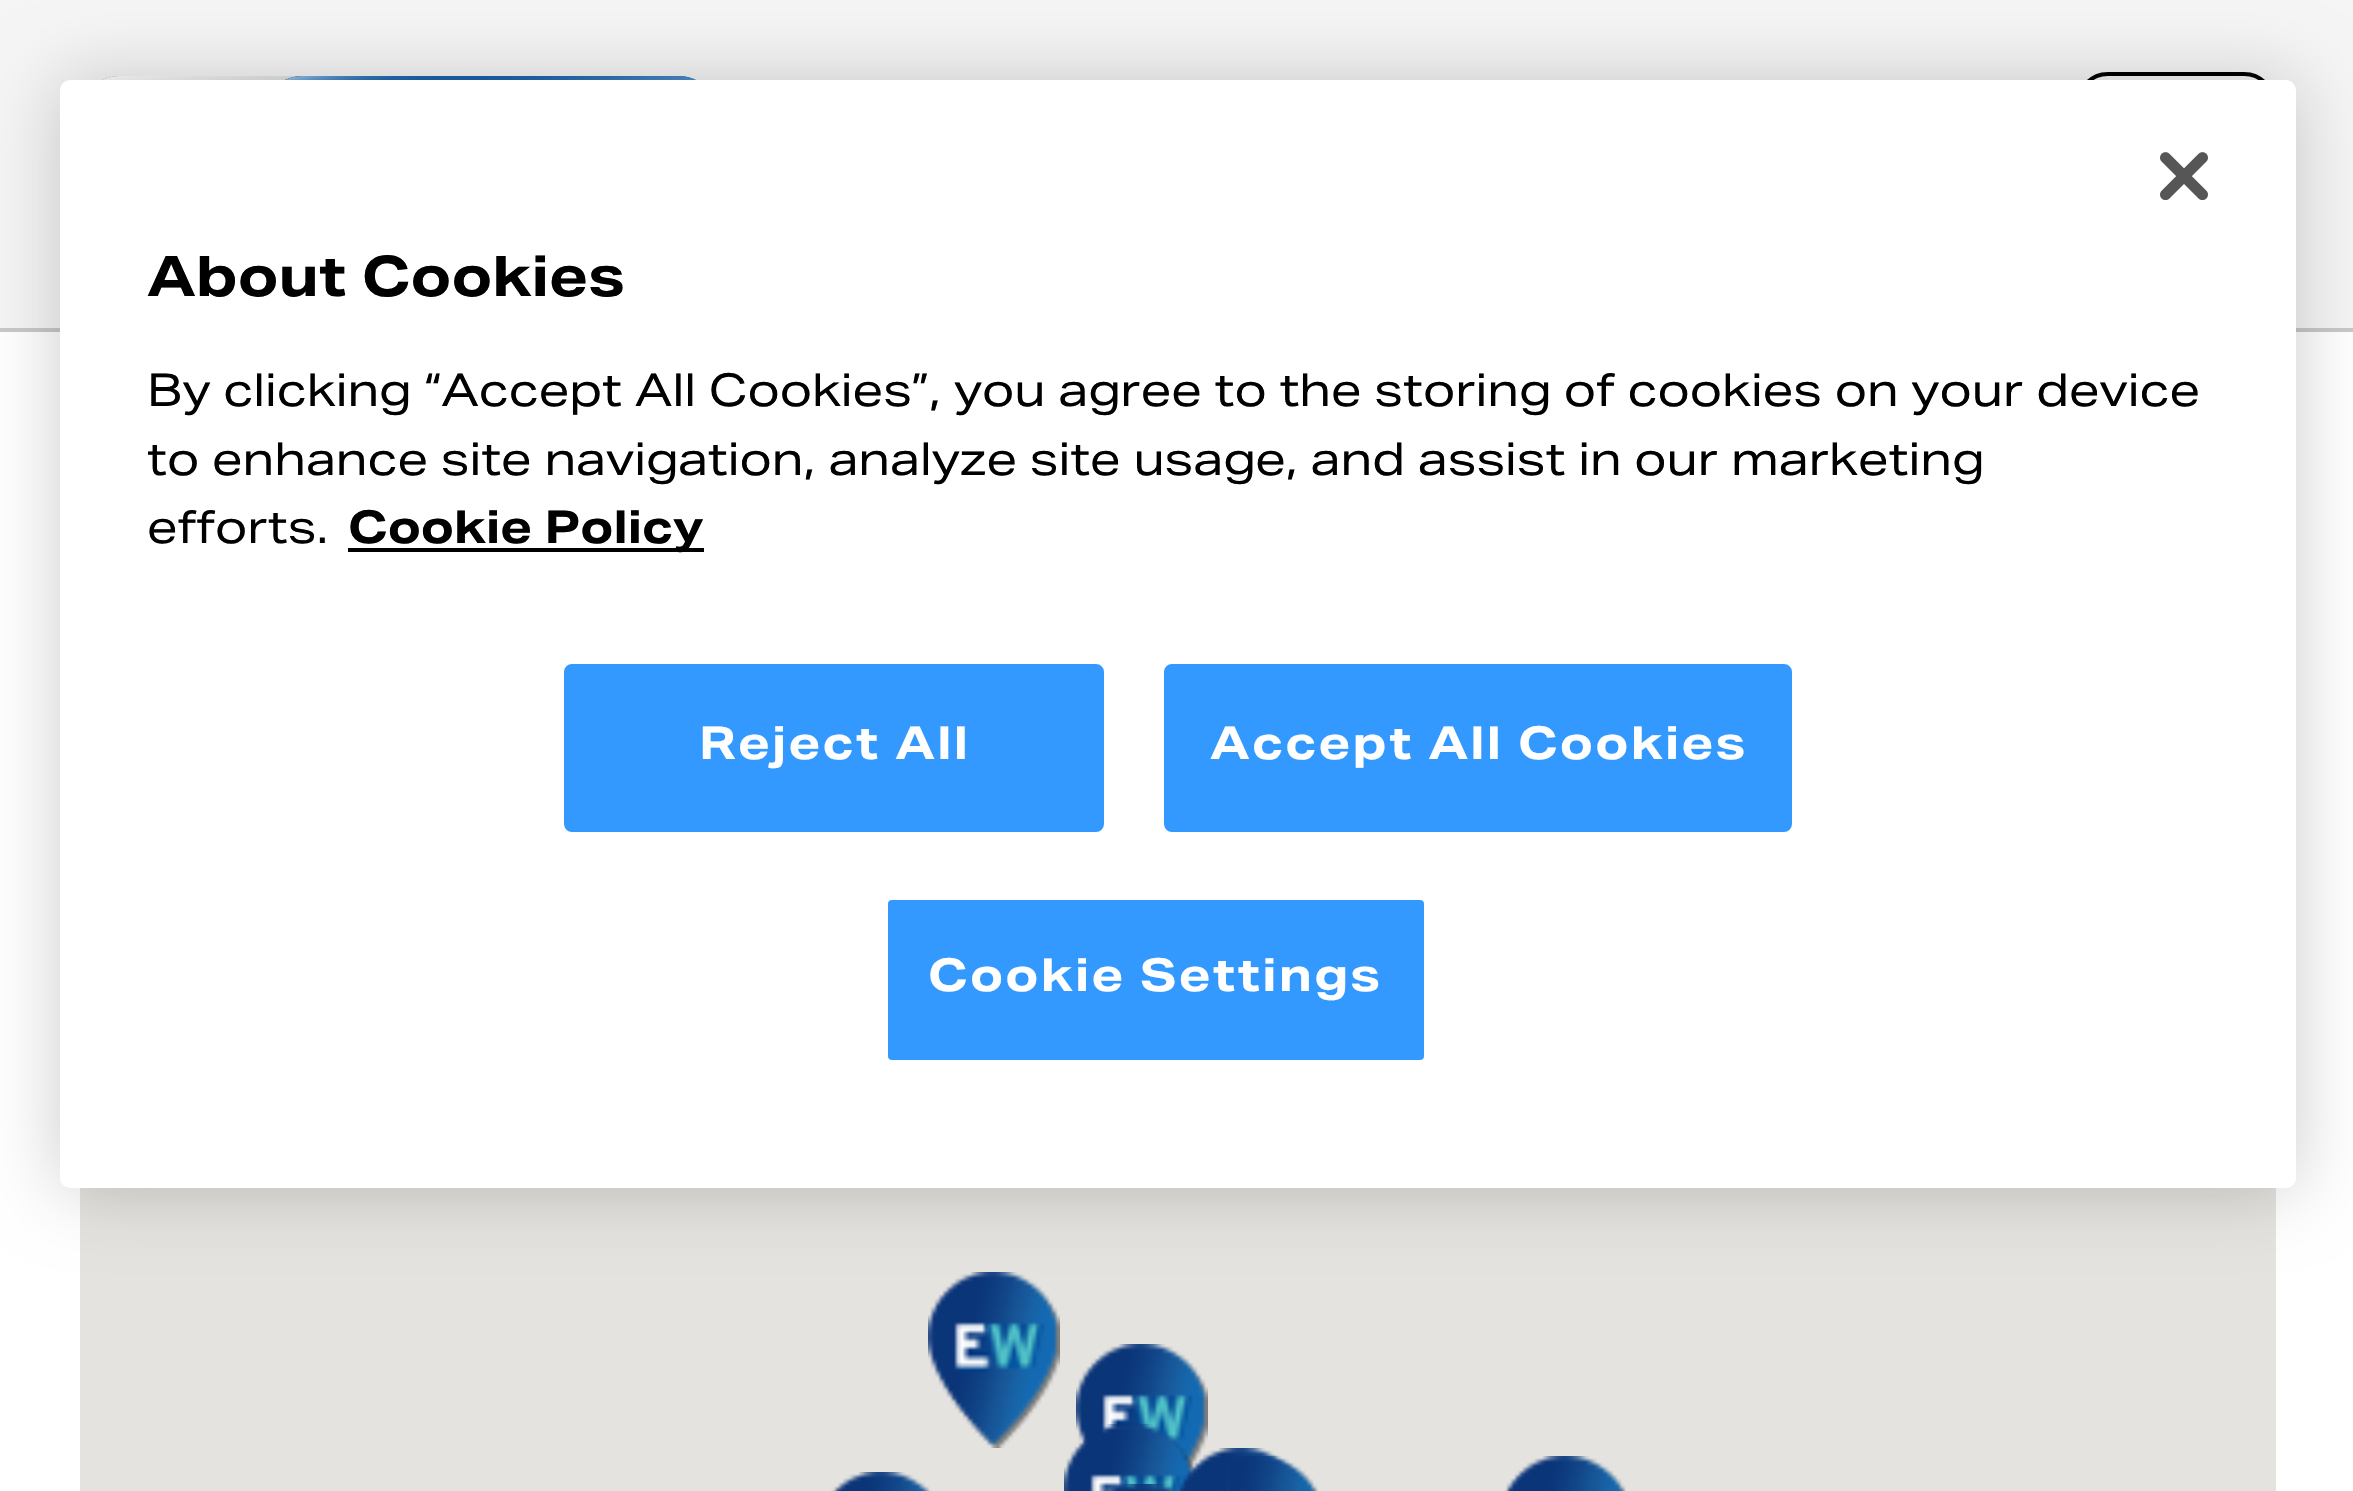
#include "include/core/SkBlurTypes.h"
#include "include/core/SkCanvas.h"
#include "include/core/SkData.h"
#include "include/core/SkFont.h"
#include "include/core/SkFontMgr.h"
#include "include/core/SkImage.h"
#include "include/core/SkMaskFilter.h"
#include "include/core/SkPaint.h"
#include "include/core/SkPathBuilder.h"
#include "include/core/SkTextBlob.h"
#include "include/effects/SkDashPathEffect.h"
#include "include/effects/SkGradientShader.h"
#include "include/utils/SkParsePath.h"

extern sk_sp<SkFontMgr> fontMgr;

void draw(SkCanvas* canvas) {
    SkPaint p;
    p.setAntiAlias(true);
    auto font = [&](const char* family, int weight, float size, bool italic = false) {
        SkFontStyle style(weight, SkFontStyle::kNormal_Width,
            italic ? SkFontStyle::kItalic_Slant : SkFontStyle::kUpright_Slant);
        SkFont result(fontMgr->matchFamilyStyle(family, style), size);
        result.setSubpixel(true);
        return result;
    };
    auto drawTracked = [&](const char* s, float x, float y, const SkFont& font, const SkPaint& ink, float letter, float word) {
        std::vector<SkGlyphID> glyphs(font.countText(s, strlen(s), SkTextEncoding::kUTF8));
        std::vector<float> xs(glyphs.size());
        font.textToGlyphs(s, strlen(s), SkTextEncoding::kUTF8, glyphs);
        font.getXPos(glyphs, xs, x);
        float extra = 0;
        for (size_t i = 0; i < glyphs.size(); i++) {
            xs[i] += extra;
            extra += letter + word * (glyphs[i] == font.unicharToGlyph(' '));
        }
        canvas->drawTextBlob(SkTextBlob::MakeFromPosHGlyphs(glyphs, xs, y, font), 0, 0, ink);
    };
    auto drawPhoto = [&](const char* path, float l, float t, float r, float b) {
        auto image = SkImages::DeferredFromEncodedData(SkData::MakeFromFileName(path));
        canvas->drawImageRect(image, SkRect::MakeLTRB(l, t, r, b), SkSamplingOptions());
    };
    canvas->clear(0xFFFFFFFF);
    p.setColor(0xFFF5F5F5);
    canvas->drawRect(SkRect::MakeLTRB(0, 0, 2353, 328), p);
    p.setColor(0xFFC8C8C8);
    canvas->drawRect(SkRect::MakeLTRB(0, 328, 2353, 332), p);
    drawPhoto("media/1.png", 102, 76, 696, 80);
    p.setStyle(SkPaint::kStroke_Style);
    p.setStrokeWidth(4);
    p.setColor(0xFF000000);
    canvas->drawRoundRect(SkRect::MakeLTRB(2078, 74, 2274, 254), 30, 30, p);
    p.setStyle(SkPaint::kFill_Style);
    p.setColor(0xFFE5E3DF);
    canvas->drawRect(SkRect::MakeLTRB(80, 1188, 2276, 1491), p);
    drawPhoto("media/3.png", 928, 1272, 1060, 1448);
    p.setColor(0x33000000);
    p.setMaskFilter(SkMaskFilter::MakeBlur(kNormal_SkBlurStyle, 36));
    canvas->drawRoundRect(SkRect::MakeLTRB(60, 80, 2296, 1188), 10, 10, p);
    p.setMaskFilter(nullptr);
    p.setColor(0xFFFFFFFF);
    canvas->drawRoundRect(SkRect::MakeLTRB(60, 80, 2296, 1188), 10, 10, p);
    drawPhoto("media/2.png", 2160, 152, 2208, 200);
    auto font1 = font("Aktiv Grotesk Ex", 700, 56);
    p.setColor(0xFF000000);
    canvas->drawString("About Cookies", 147, 296, font1, p);
    auto font2 = font("Aktiv Grotesk Ex", 400, 45.55f);
    {
        const struct { const char* s; float x, y; } items[] = {
            {"By clicking “Accept All Cookies”, you agree to the storing of cookies on your device", 147, 406},
            {"to enhance site navigation, analyze site usage, and assist in our marketing", 147, 475},
            {"efforts.", 147, 543},
        };
        for (auto [s, x, y] : items) {
            canvas->drawString(s, x, y, font2, p);
        }
    }
    canvas->drawRect(SkRect::MakeLTRB(348, 548, 704, 552), p);
    auto font3 = font("Aktiv Grotesk Ex", 700, 45.55f);
    canvas->drawString("Cookie Policy", 348, 543, font3, p);
    p.setColor(0xFF3399FF);
    canvas->drawRoundRect(SkRect::MakeLTRB(566, 666, 1102, 830), 6, 6, p);
    p.setStyle(SkPaint::kStroke_Style);
    canvas->drawRoundRect(SkRect::MakeLTRB(566, 666, 1102, 830), 6, 6, p);
    p.setStyle(SkPaint::kFill_Style);
    p.setColor(0xFFFFFFFF);
    drawTracked("Reject All", 699, 759, font3, p, 2.25f, 0);
    p.setColor(0xFF3399FF);
    canvas->drawRoundRect(SkRect::MakeLTRB(1166, 666, 1790, 830), 6, 6, p);
    p.setStyle(SkPaint::kStroke_Style);
    canvas->drawRoundRect(SkRect::MakeLTRB(1166, 666, 1790, 830), 6, 6, p);
    p.setStyle(SkPaint::kFill_Style);
    p.setColor(0xFFFFFFFF);
    drawTracked("Accept All Cookies", 1210, 759, font3, p, 2.25f, 0);
    p.setColor(0xFF3399FF);
    canvas->drawRoundRect(SkRect::MakeLTRB(886, 898, 1426, 1062), 6, 6, p);
    p.setStyle(SkPaint::kStroke_Style);
    p.setColor(0xFFFFFFFF);
    canvas->drawRoundRect(SkRect::MakeLTRB(886, 898, 1426, 1062), 6, 6, p);
    p.setStyle(SkPaint::kFill_Style);
    drawTracked("Cookie Settings", 928, 991, font3, p, 2.25f, 0);
    drawPhoto("media/4.png", 1076, 1344, 1208, 1477);
    drawPhoto("media/5.png", 1064, 1424, 1196, 1491);
    drawPhoto("media/6.png", 1178, 1448, 1300, 1491);
    drawPhoto("media/7.png", 831, 1472, 932, 1491);
    drawPhoto("media/8.png", 1115, 1484, 1174, 1491);
    drawPhoto("media/9.png", 1230, 1456, 1318, 1491);
    drawPhoto("media/10.png", 1503, 1456, 1626, 1491);
}
